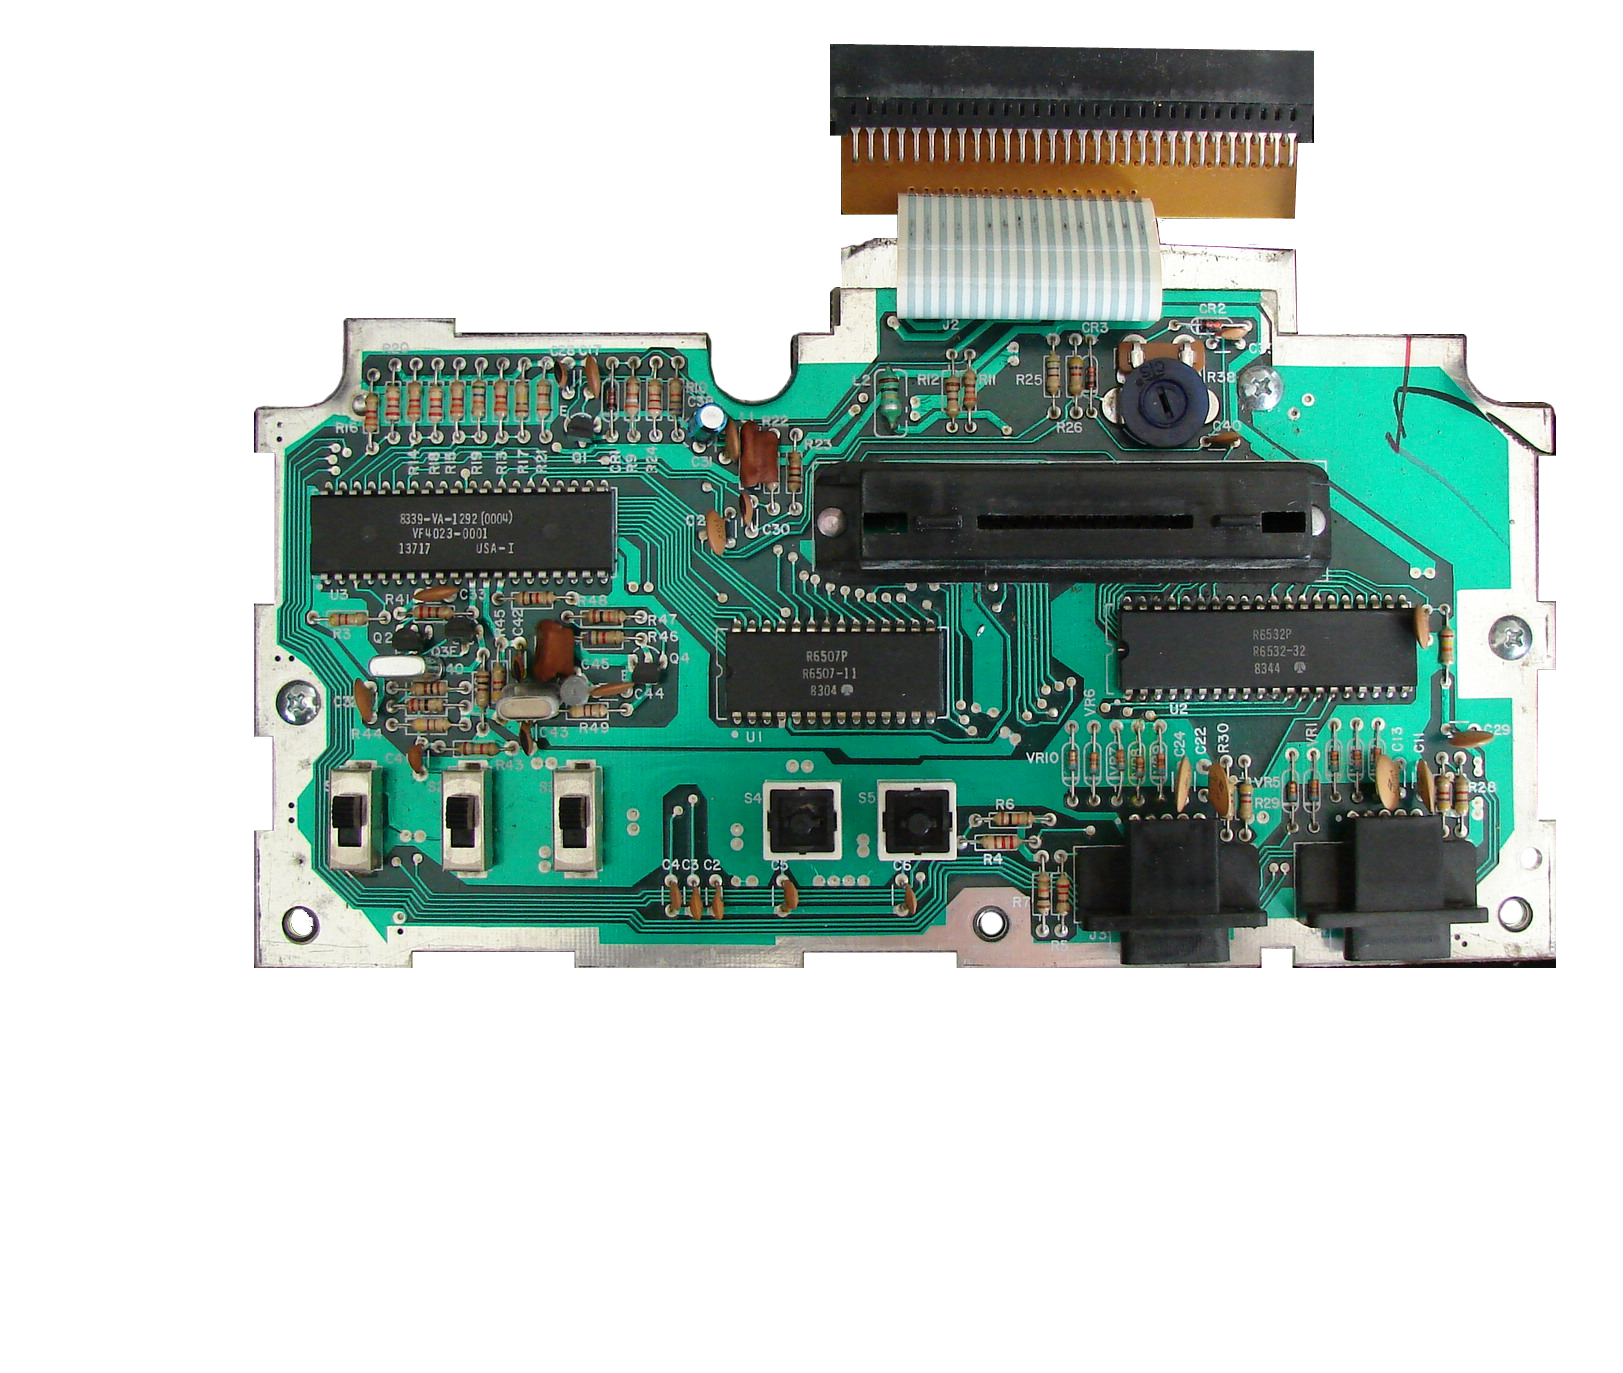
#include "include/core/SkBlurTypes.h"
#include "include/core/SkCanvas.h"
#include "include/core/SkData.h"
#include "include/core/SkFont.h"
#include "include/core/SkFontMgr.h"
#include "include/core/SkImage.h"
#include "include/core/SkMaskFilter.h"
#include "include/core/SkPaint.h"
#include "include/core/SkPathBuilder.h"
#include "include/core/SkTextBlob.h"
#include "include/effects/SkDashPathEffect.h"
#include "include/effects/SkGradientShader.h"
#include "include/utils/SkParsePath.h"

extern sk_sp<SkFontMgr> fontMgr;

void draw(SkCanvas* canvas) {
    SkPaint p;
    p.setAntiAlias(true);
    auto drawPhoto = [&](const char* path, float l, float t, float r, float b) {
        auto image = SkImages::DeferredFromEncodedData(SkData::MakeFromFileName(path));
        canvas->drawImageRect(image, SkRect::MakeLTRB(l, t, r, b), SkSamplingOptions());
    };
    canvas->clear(0xFFFFFFFF);
    drawPhoto("media/1.png", 254, 44, 1556, 968);
}
